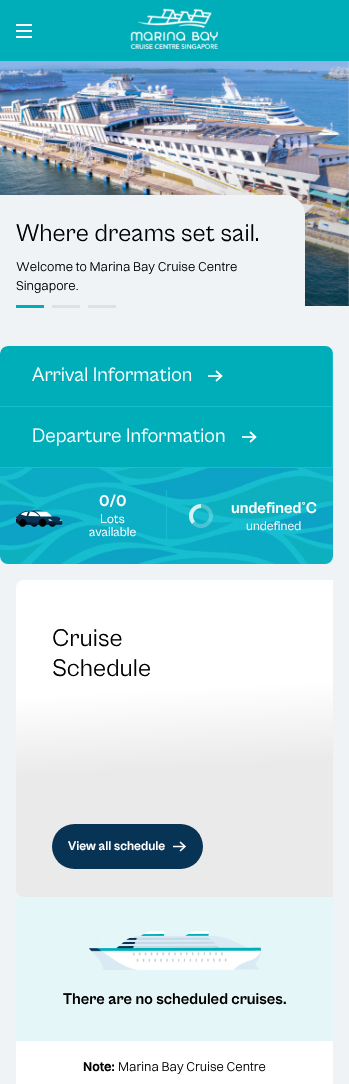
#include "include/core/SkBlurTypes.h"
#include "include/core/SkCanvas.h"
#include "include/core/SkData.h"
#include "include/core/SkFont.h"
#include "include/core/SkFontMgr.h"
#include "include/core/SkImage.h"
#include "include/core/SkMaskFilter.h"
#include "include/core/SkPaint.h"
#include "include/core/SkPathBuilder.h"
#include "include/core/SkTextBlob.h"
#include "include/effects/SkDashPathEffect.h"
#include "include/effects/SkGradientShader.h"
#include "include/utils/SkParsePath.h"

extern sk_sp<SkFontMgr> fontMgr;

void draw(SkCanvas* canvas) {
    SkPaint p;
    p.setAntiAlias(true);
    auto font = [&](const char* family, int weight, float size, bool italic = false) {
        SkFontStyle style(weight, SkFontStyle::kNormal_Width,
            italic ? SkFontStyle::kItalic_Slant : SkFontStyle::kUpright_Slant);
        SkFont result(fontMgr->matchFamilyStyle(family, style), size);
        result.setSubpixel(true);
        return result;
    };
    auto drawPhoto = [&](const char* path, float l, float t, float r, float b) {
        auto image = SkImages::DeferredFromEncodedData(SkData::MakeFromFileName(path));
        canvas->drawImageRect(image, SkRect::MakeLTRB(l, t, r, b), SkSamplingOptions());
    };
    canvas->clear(0xFFF0F3F5);
    {
        const struct { float l, t, r, b; SkColor color; } items[] = {
            {0, 0, 349, 61, 0xFF00AEB9},
            {16, 24, 32, 26, 0xFFFFFFFF},
            {16, 30, 32, 32, 0xFFFFFFFF},
            {16, 36, 32, 38, 0xFFFFFFFF},
        };
        for (auto [l, t, r, b, color] : items) {
            p.setColor(color);
            canvas->drawRect(SkRect::MakeLTRB(l, t, r, b), p);
        }
    }
    drawPhoto("media/1.png", 130, 8, 218, 49);
    drawPhoto("media/2.png", 0, 61, 349, 306);
    p.setColor(0xFFF0F3F5);
    canvas->drawPath(SkPathBuilder().moveTo(0, 195).lineTo(285, 195).cubicTo(296, 195, 305, 204, 305, 215).lineTo(305, 308).lineTo(0, 308).close().detach(), p);
    auto font1 = font("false", 400, 25);
    p.setColor(0xFF000000);
    canvas->drawString("Where dreams set sail.", 16, 241, font1, p);
    auto font2 = font("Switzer", 300, 13);
    canvas->drawString("Welcome to Marina Bay Cruise Centre", 16, 271, font2, p);
    canvas->drawString("Singapore.", 16, 290, font2, p);
    {
        const struct { float l, t, r, b; SkColor color; } items[] = {
            {16, 305, 44, 308, 0xFF00AEB9},
            {52, 305, 80, 308, 0xFFE0E0E0},
            {88, 305, 116, 308, 0xFFE0E0E0},
        };
        for (auto [l, t, r, b, color] : items) {
            p.setColor(color);
            canvas->drawRect(SkRect::MakeLTRB(l, t, r, b), p);
        }
    }
    canvas->save();
    canvas->clipPath(SkPathBuilder().moveTo(8, 346).lineTo(325, 346).cubicTo(329.5f, 346, 333, 349.5f, 333, 354).lineTo(333, 556).cubicTo(333, 560.5f, 329.5f, 564, 325, 564).lineTo(8, 564).cubicTo(3.5f, 564, 0, 560.5f, 0, 556).lineTo(0, 354).cubicTo(0, 349.5f, 3.5f, 346, 8, 346).close().detach(), true);
    p.setColor(0xFF00AEB9);
    canvas->drawPath(SkPathBuilder().moveTo(8, 346).lineTo(332, 346).lineTo(332, 468).lineTo(0, 468).lineTo(0, 354).cubicTo(0, 349.5f, 3.5f, 346, 8, 346).close().detach(), p);
    p.setColor(0xFF16BECF);
    canvas->drawRect(SkRect::MakeLTRB(332, 346, 333, 468), p);
    canvas->restore();
    canvas->drawRect(SkRect::MakeLTRB(0, 406, 332, 407), p);
    auto font3 = font("false", 400, 20);
    p.setColor(0xFFFFFFFF);
    canvas->drawString("Arrival Information", 32, 381, font3, p);
    p.setStyle(SkPaint::kStroke_Style);
    p.setStrokeWidth(1.7f);
    canvas->drawPath(SkPathBuilder().moveTo(216, 371).lineTo(221.5f, 376).lineTo(216, 381).detach(), p);
    p.setStyle(SkPaint::kFill_Style);
    p.setColor(0xD9FFFFFF);
    canvas->drawRect(SkRect::MakeLTRB(208, 375, 221, 377), p);
    p.setColor(0xFF16BECF);
    canvas->drawRect(SkRect::MakeLTRB(0, 467, 332, 468), p);
    p.setColor(0xFFFFFFFF);
    canvas->drawString("Departure Information", 32, 442, font3, p);
    p.setStyle(SkPaint::kStroke_Style);
    canvas->drawPath(SkPathBuilder().moveTo(250, 432).lineTo(255.5f, 437).lineTo(250, 442).detach(), p);
    p.setStyle(SkPaint::kFill_Style);
    p.setColor(0xD9FFFFFF);
    canvas->drawRect(SkRect::MakeLTRB(242, 436, 255, 438), p);
    drawPhoto("media/3.png", 0, 468, 333, 564);
    drawPhoto("media/4.png", 16, 510, 63, 527);
    auto font4 = font("false", 700, 16);
    p.setColor(0xFFFFFFFF);
    canvas->drawString("0/0", 99, 506, font4, p);
    auto font5 = font("false", 400, 13);
    canvas->drawString("Lots", 100, 523, font5, p);
    canvas->drawString("available", 89, 536, font5, p);
    p.setColor(0xFF16BECF);
    canvas->drawRect(SkRect::MakeLTRB(166, 490, 167, 542), p);
    drawPhoto("media/5.png", 189, 504, 213, 528);
    p.setColor(0xFFFFFFFF);
    canvas->drawString("undefined°C", 231, 513, font4, p);
    canvas->drawString("undefined", 246, 530, font5, p);
    {
        const SkColor colors[] = {0xFFFFFFFF, 0xFFEAEAEA};
        const float stops[] = {0.35f, 0.59f};
        const SkPoint ends[] = {{166, 572}, {183, 905}};
        p.setShader(SkGradientShader::MakeLinear(ends, colors, stops, 2, SkTileMode::kClamp));
        p.setAlpha(255);
    }
    canvas->drawPath(SkPathBuilder().moveTo(24, 580).lineTo(333, 580).lineTo(333, 897).lineTo(24, 897).cubicTo(19.5f, 897, 16, 893.5f, 16, 889).lineTo(16, 588).cubicTo(16, 583.5f, 19.5f, 580, 24, 580).close().detach(), p);
    p.setShader(nullptr);
    p.setColor(0xFF000000);
    canvas->drawString("Cruise", 52, 646, font1, p);
    canvas->drawString("Schedule", 52, 676, font1, p);
    p.setColor(0xFF073355);
    canvas->drawRoundRect(SkRect::MakeLTRB(52, 824, 203, 869), 22.5f, 22.5f, p);
    auto font6 = font("false", 700, 13);
    p.setColor(0xFFFFFFFF);
    canvas->drawString("View all schedule", 68, 850, font6, p);
    drawPhoto("media/6.png", 173, 841, 186, 852);
    p.setColor(0xFFE5F6F8);
    canvas->drawRect(SkRect::MakeLTRB(16, 897, 333, 1041), p);
    drawPhoto("media/7.png", 89, 931, 261, 970);
    p.setColor(0xFF000000);
    canvas->drawString("There are no scheduled cruises.", 63, 1004, font4, p);
    p.setColor(0xFFFFFFFF);
    canvas->drawRect(SkRect::MakeLTRB(16, 1041, 333, 1084), p);
    auto font7 = font("Switzer", 600, 13);
    p.setColor(0xFF000000);
    canvas->drawString("Note:", 83, 1071, font7, p);
    canvas->drawString("Marina Bay Cruise Centre", 118, 1071, font2, p);
}
